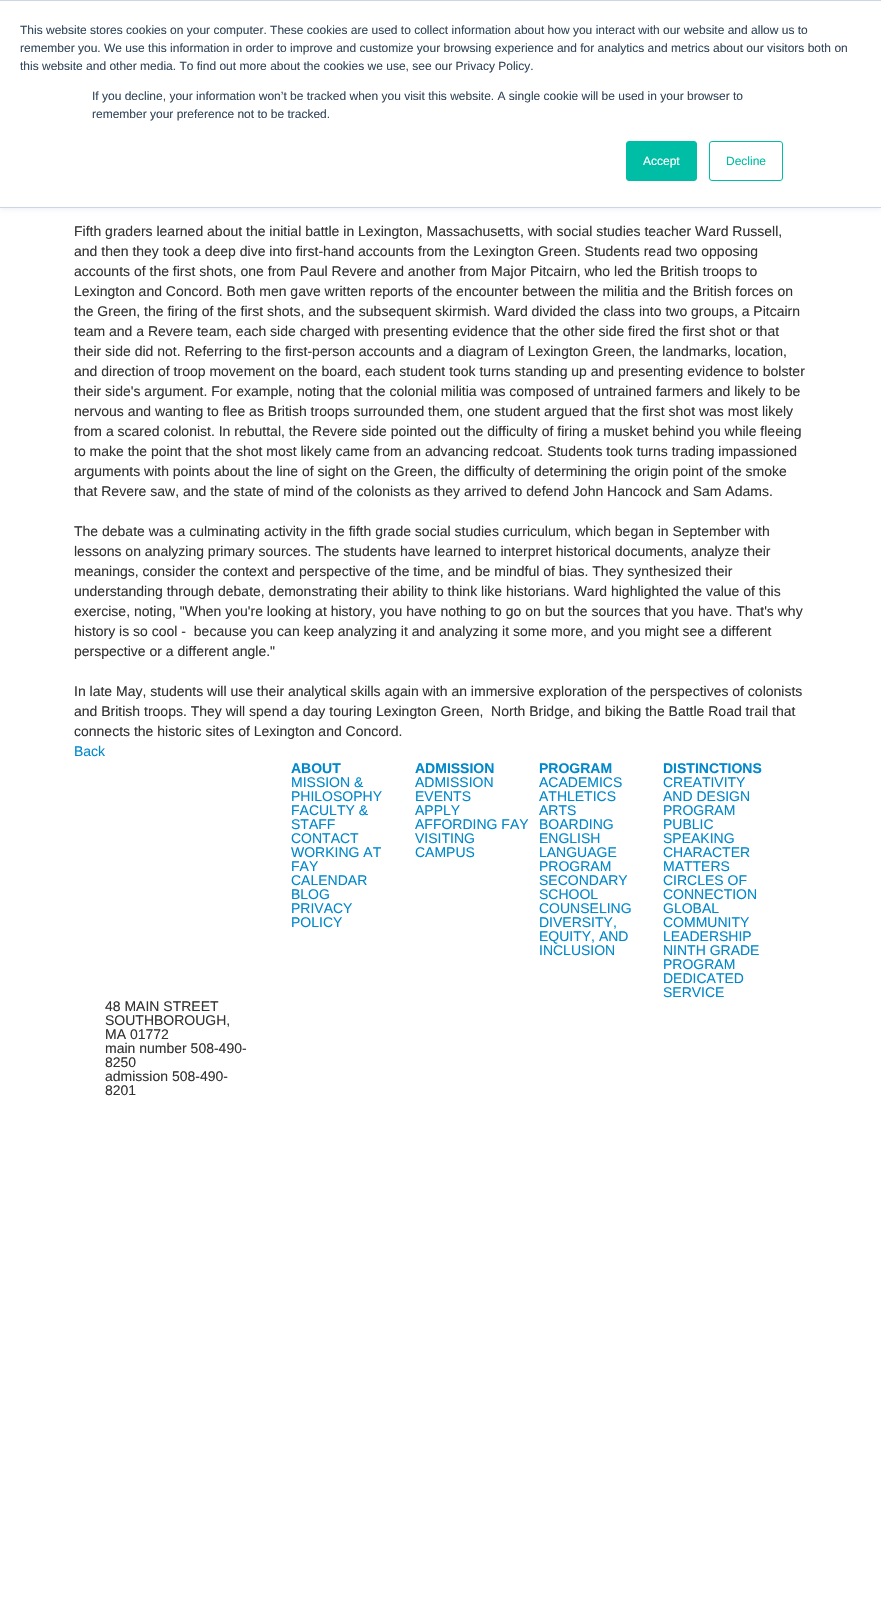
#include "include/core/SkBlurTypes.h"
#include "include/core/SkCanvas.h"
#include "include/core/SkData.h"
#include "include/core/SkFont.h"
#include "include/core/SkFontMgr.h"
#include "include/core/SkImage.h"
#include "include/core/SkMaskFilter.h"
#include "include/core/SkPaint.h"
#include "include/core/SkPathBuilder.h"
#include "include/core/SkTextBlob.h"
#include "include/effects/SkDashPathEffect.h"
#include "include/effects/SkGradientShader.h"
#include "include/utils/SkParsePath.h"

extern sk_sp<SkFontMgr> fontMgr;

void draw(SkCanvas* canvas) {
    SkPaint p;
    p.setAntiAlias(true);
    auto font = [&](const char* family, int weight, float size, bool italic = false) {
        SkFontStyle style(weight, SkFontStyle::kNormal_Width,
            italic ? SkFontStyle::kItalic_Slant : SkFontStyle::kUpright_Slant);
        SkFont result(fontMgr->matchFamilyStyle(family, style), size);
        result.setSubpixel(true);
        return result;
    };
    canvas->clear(0xFFFFFFFF);
    p.setColor(0xFFEAF0F6);
    p.setMaskFilter(SkMaskFilter::MakeBlur(kNormal_SkBlurStyle, 2.5f));
    canvas->drawRect(SkRect::MakeLTRB(0, 1, 881, 209), p);
    p.setMaskFilter(nullptr);
    {
        const struct { float l, t, r, b; SkColor color; } items[] = {
            {0, 1, 881, 207, 0xFFFFFFFF},
            {0, 0, 881, 1, 0xFFCBD6E2},
            {0, 207, 881, 208, 0xFFCBD6E2},
        };
        for (auto [l, t, r, b, color] : items) {
            p.setColor(color);
            canvas->drawRect(SkRect::MakeLTRB(l, t, r, b), p);
        }
    }
    auto font1 = font("Liberation Sans", 400, 12);
    p.setColor(0xFF33475B);
    {
        const struct { const char* s; float x, y; } items[] = {
            {"This website stores cookies on your computer. These cookies are used to collect information about how you interact with our website and allow us to", 20, 34},
            {"remember you. We use this information in order to improve and customize your browsing experience and for analytics and metrics about our visitors both on", 20, 52},
            {"this website and other media. To find out more about the cookies we use, see our Privacy Policy.", 20, 70},
            {"If you decline, your information won’t be tracked when you visit this website. A single cookie will be used in your browser to", 92, 100},
            {"remember your preference not to be tracked.", 92, 118},
        };
        for (auto [s, x, y] : items) {
            canvas->drawString(s, x, y, font1, p);
        }
    }
    p.setColor(0xFF00BDA5);
    canvas->drawRoundRect(SkRect::MakeLTRB(626.5f, 141.5f, 696.5f, 180.5f), 2.5f, 2.5f, p);
    p.setStyle(SkPaint::kStroke_Style);
    p.setStrokeWidth(1);
    canvas->drawRoundRect(SkRect::MakeLTRB(626.5f, 141.5f, 696.5f, 180.5f), 2.5f, 2.5f, p);
    p.setStyle(SkPaint::kFill_Style);
    p.setColor(0xFFFFFFFF);
    canvas->drawString("Accept", 643, 165, font1, p);
    p.setStyle(SkPaint::kStroke_Style);
    p.setColor(0xFF00BDA5);
    canvas->drawRoundRect(SkRect::MakeLTRB(709.5f, 141.5f, 782.5f, 180.5f), 2.5f, 2.5f, p);
    p.setStyle(SkPaint::kFill_Style);
    canvas->drawString("Decline", 726, 165, font1, p);
    auto font2 = font("Liberation Sans", 400, 14);
    p.setColor(0xFF333333);
    {
        const struct { const char* s; float x, y; } items[] = {
            {"Fifth graders learned about the initial battle in Lexington, Massachusetts, with social studies teacher Ward Russell,", 74, 236},
            {"and then they took a deep dive into first-hand accounts from the Lexington Green. Students read two opposing", 74, 256},
            {"accounts of the first shots, one from Paul Revere and another from Major Pitcairn, who led the British troops to", 74, 276},
            {"Lexington and Concord. Both men gave written reports of the encounter between the militia and the British forces on", 74, 296},
            {"the Green, the firing of the first shots, and the subsequent skirmish. Ward divided the class into two groups, a Pitcairn", 74, 316},
            {"team and a Revere team, each side charged with presenting evidence that the other side fired the first shot or that", 74, 336},
            {"their side did not. Referring to the first-person accounts and a diagram of Lexington Green, the landmarks, location,", 74, 356},
            {"and direction of troop movement on the board, each student took turns standing up and presenting evidence to bolster", 74, 376},
            {"their side's argument. For example, noting that the colonial militia was composed of untrained farmers and likely to be", 74, 396},
            {"nervous and wanting to flee as British troops surrounded them, one student argued that the first shot was most likely", 74, 416},
            {"from a scared colonist. In rebuttal, the Revere side pointed out the difficulty of firing a musket behind you while fleeing", 74, 436},
            {"to make the point that the shot most likely came from an advancing redcoat. Students took turns trading impassioned", 74, 456},
            {"arguments with points about the line of sight on the Green, the difficulty of determining the origin point of the smoke", 74, 476},
            {"that Revere saw, and the state of mind of the colonists as they arrived to defend John Hancock and Sam Adams.", 74, 496},
            {"The debate was a culminating activity in the fifth grade social studies curriculum, which began in September with", 74, 536},
            {"lessons on analyzing primary sources. The students have learned to interpret historical documents, analyze their", 74, 556},
            {"meanings, consider the context and perspective of the time, and be mindful of bias. They synthesized their", 74, 576},
            {"understanding through debate, demonstrating their ability to think like historians. Ward highlighted the value of this", 74, 596},
            {"exercise, noting, \"When you're looking at history, you have nothing to go on but the sources that you have. That's why", 74, 616},
            {"history is so cool -  because you can keep analyzing it and analyzing it some more, and you might see a different", 74, 636},
            {"perspective or a different angle.\"", 74, 656},
            {"In late May, students will use their analytical skills again with an immersive exploration of the perspectives of colonists", 74, 696},
            {"and British troops. They will spend a day touring Lexington Green,  North Bridge, and biking the Battle Road trail that", 74, 716},
            {"connects the historic sites of Lexington and Concord.", 74, 736},
        };
        for (auto [s, x, y] : items) {
            canvas->drawString(s, x, y, font2, p);
        }
    }
    p.setColor(0xFF0088CC);
    canvas->drawString("Back", 74, 756, font2, p);
    auto font3 = font("Liberation Sans", 700, 14);
    canvas->drawString("ABOUT", 291, 773, font3, p);
    {
        const struct { const char* s; float x, y; } items[] = {
            {"MISSION &", 291, 787},
            {"PHILOSOPHY", 291, 801},
            {"FACULTY &", 291, 815},
            {"STAFF", 291, 829},
            {"CONTACT", 291, 843},
            {"WORKING AT", 291, 857},
            {"FAY", 291, 871},
            {"CALENDAR", 291, 885},
            {"BLOG", 291, 899},
            {"PRIVACY", 291, 913},
            {"POLICY", 291, 927},
        };
        for (auto [s, x, y] : items) {
            canvas->drawString(s, x, y, font2, p);
        }
    }
    canvas->drawString("ADMISSION", 415, 773, font3, p);
    {
        const struct { const char* s; float x, y; } items[] = {
            {"ADMISSION", 415, 787},
            {"EVENTS", 415, 801},
            {"APPLY", 415, 815},
            {"AFFORDING FAY", 415, 829},
            {"VISITING", 415, 843},
            {"CAMPUS", 415, 857},
        };
        for (auto [s, x, y] : items) {
            canvas->drawString(s, x, y, font2, p);
        }
    }
    canvas->drawString("PROGRAM", 539, 773, font3, p);
    {
        const struct { const char* s; float x, y; } items[] = {
            {"ACADEMICS", 539, 787},
            {"ATHLETICS", 539, 801},
            {"ARTS", 539, 815},
            {"BOARDING", 539, 829},
            {"ENGLISH", 539, 843},
            {"LANGUAGE", 539, 857},
            {"PROGRAM", 539, 871},
            {"SECONDARY", 539, 885},
            {"SCHOOL", 539, 899},
            {"COUNSELING", 539, 913},
            {"DIVERSITY,", 539, 927},
            {"EQUITY, AND", 539, 941},
            {"INCLUSION", 539, 955},
        };
        for (auto [s, x, y] : items) {
            canvas->drawString(s, x, y, font2, p);
        }
    }
    canvas->drawString("DISTINCTIONS", 663, 773, font3, p);
    {
        const struct { const char* s; float x, y; } items[] = {
            {"CREATIVITY", 663, 787},
            {"AND DESIGN", 663, 801},
            {"PROGRAM", 663, 815},
            {"PUBLIC", 663, 829},
            {"SPEAKING", 663, 843},
            {"CHARACTER", 663, 857},
            {"MATTERS", 663, 871},
            {"CIRCLES OF", 663, 885},
            {"CONNECTION", 663, 899},
            {"GLOBAL", 663, 913},
            {"COMMUNITY", 663, 927},
            {"LEADERSHIP", 663, 941},
            {"NINTH GRADE", 663, 955},
            {"PROGRAM", 663, 969},
            {"DEDICATED", 663, 983},
            {"SERVICE", 663, 997},
        };
        for (auto [s, x, y] : items) {
            canvas->drawString(s, x, y, font2, p);
        }
    }
    p.setColor(0xFF333333);
    {
        const struct { const char* s; float x, y; } items[] = {
            {"48 MAIN STREET", 105, 1011},
            {"SOUTHBOROUGH,", 105, 1025},
            {"MA 01772", 105, 1039},
            {"main number 508-490-", 105, 1053},
            {"8250", 105, 1067},
            {"admission 508-490-", 105, 1081},
            {"8201", 105, 1095},
        };
        for (auto [s, x, y] : items) {
            canvas->drawString(s, x, y, font2, p);
        }
    }
}
